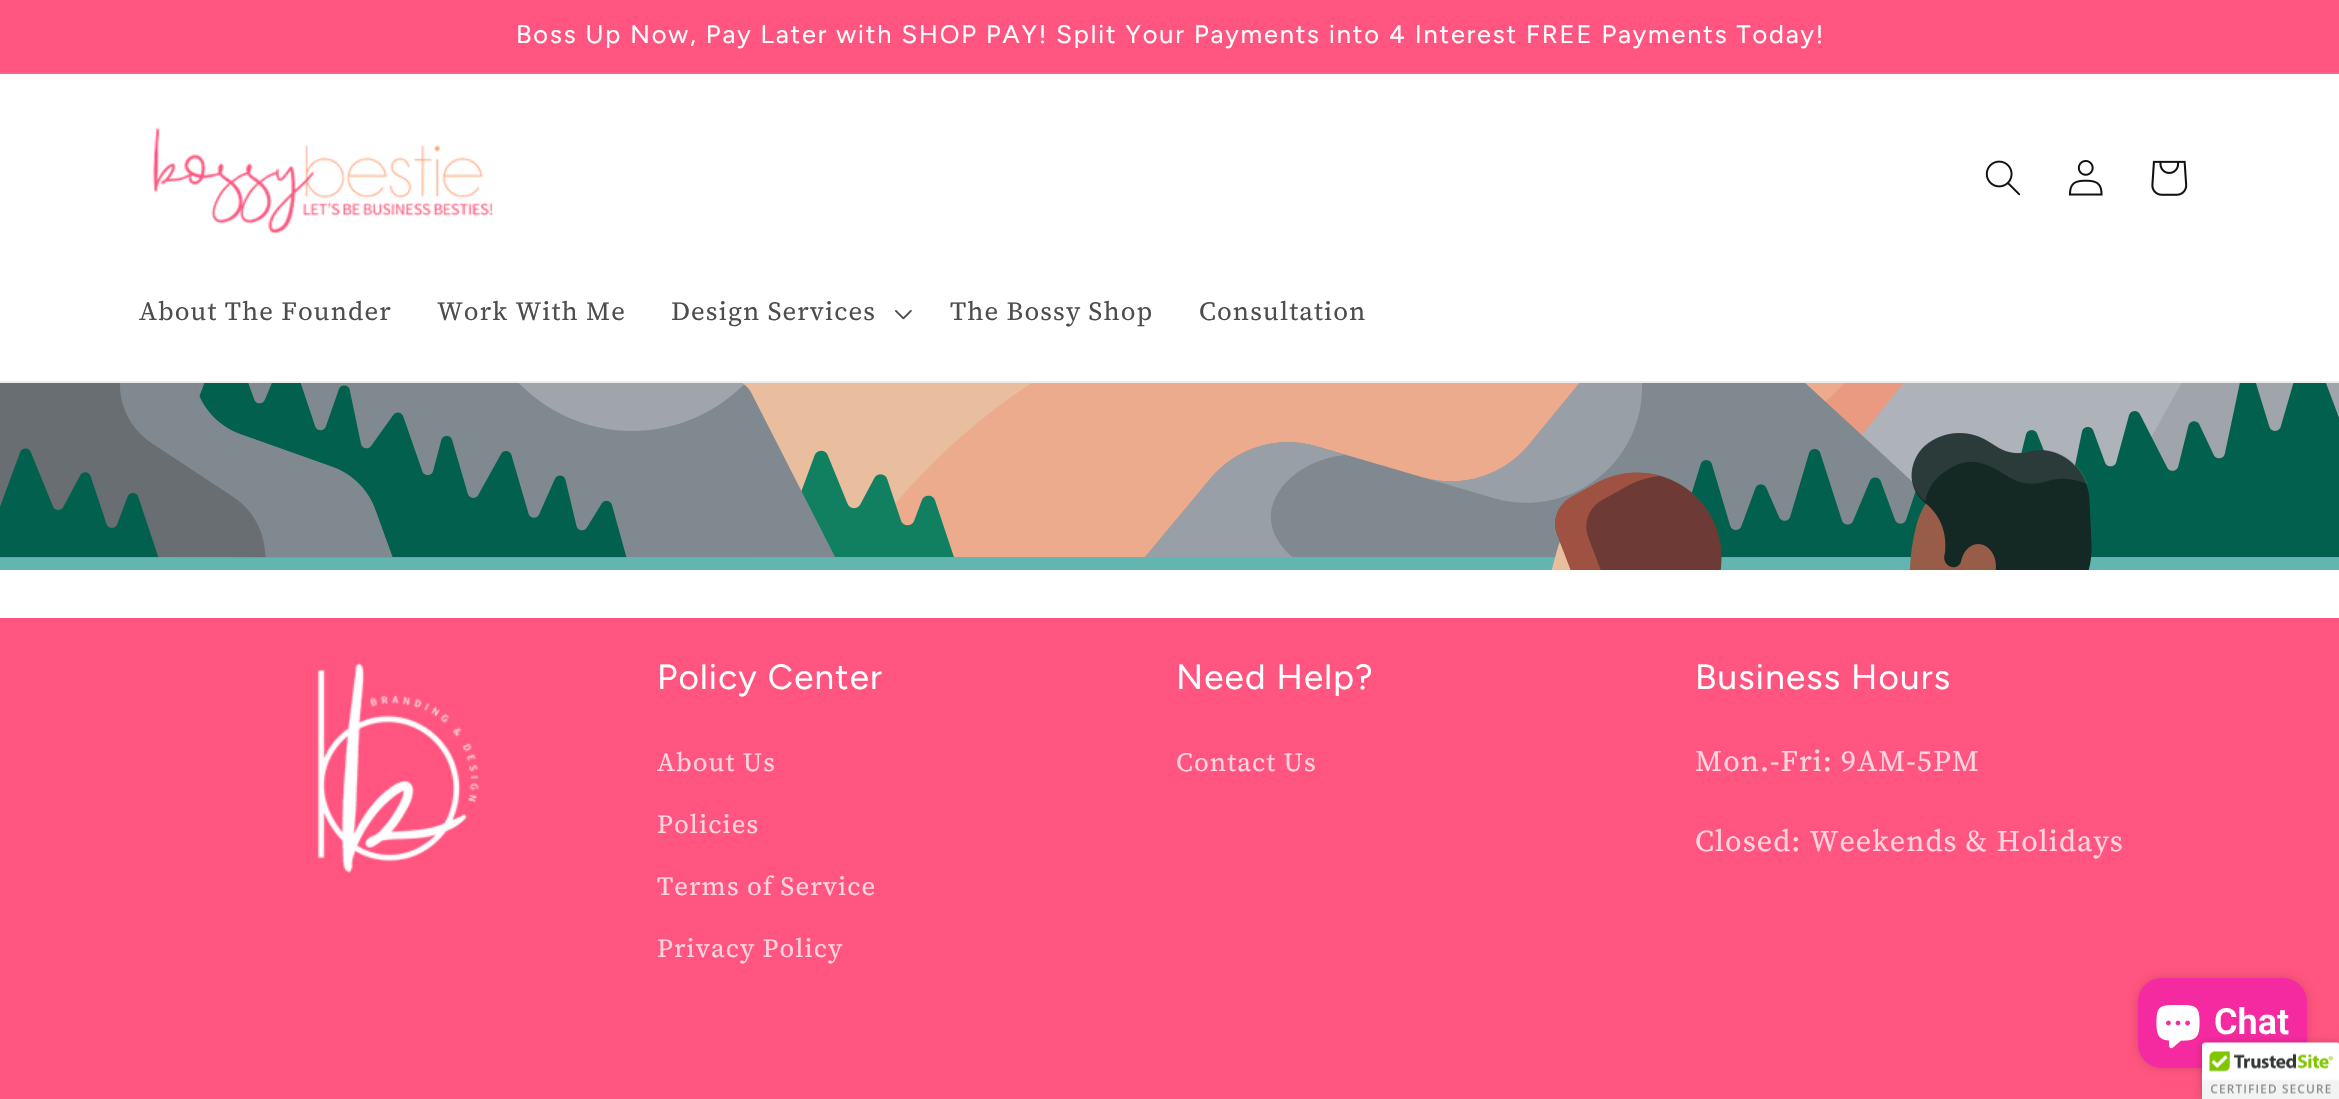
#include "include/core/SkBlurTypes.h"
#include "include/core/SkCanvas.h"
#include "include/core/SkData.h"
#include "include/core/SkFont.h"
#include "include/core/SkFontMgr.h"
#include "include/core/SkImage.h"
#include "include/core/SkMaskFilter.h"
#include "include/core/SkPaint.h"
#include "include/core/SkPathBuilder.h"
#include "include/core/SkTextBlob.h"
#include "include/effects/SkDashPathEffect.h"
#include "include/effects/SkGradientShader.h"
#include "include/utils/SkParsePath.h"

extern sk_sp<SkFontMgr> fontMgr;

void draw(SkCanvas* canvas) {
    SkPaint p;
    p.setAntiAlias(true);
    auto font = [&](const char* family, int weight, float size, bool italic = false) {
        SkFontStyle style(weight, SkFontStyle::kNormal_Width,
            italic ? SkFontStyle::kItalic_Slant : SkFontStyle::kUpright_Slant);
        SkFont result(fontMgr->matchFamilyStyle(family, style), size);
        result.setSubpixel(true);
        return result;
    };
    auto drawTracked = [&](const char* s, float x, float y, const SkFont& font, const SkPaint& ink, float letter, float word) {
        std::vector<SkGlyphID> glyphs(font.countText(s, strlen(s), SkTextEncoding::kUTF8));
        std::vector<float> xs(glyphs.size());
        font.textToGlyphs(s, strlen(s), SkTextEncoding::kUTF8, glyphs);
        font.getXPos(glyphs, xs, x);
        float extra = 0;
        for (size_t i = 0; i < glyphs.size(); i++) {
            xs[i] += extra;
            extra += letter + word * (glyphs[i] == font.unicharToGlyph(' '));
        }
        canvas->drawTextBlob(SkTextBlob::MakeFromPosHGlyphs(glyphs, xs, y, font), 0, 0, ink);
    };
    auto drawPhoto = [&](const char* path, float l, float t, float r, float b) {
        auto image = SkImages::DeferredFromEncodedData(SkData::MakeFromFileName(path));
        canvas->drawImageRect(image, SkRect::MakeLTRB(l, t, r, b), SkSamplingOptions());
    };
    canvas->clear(0xFFFFFFFF);
    p.setColor(0xFFFF5580);
    canvas->drawRect(SkRect::MakeLTRB(0, 0, 2339, 72), p);
    p.setColor(0xFFFF638A);
    canvas->drawRect(SkRect::MakeLTRB(0, 72, 2339, 74), p);
    auto font1 = font("Figtree", 400, 25.35f);
    p.setColor(0xFFFFFFFF);
    drawTracked("Boss Up Now, Pay Later with SHOP PAY! Split Your Payments into 4 Interest FREE Payments Today!", 516, 43, font1, p, 1.88f, 0);
    p.setColor(0xFFECECEC);
    canvas->drawRect(SkRect::MakeLTRB(0, 381, 2339, 383), p);
    drawPhoto("media/1.png", 152, 127, 494, 234);
    drawPhoto("media/2.png", 1985, 160, 2021, 196);
    drawPhoto("media/3.png", 2068, 160, 2103, 196);
    drawPhoto("media/4.png", 2151, 160, 2188, 196);
    auto font2 = font("Source Serif 4", 400, 26.25f);
    p.setColor(0xFF4D4D4D);
    {
        const struct { const char* s; float x, y; } items[] = {
            {"About The Founder", 139, 320},
            {"Work With Me", 437, 320},
            {"Design Services", 671, 320},
        };
        for (auto [s, x, y] : items) {
            drawTracked(s, x, y, font2, p, 1.1f, 0);
        }
    }
    drawPhoto("media/5.png", 895, 310, 912, 320);
    drawTracked("The Bossy Shop", 950, 320, font2, p, 1.1f, 0);
    drawTracked("Consultation", 1199, 320, font2, p, 1.1f, 0);
    drawPhoto("media/6.png", 0, 383, 2339, 570);
    p.setColor(0xFFFF5580);
    canvas->drawRect(SkRect::MakeLTRB(0, 618, 2339, 1099), p);
    drawPhoto("media/7.png", 317, 663, 479, 874);
    auto font3 = font("Figtree", 400, 35);
    p.setColor(0xFFFFFFFF);
    drawTracked("Policy Center", 657, 689, font3, p, 1.2f, 0);
    p.setColor(0xFFFFD5DF);
    {
        const struct { const char* s; float x, y; } items[] = {
            {"About Us", 657, 771},
            {"Policies", 657, 833},
            {"Terms of Service", 657, 895},
            {"Privacy Policy", 657, 957},
        };
        for (auto [s, x, y] : items) {
            drawTracked(s, x, y, font2, p, 1.1f, 0);
        }
    }
    p.setColor(0xFFFFFFFF);
    drawTracked("Need Help?", 1176, 689, font3, p, 1.2f, 0);
    p.setColor(0xFFFFD5DF);
    drawTracked("Contact Us", 1176, 771, font2, p, 1.1f, 0);
    p.setColor(0xFFFFFFFF);
    drawTracked("Business Hours", 1695, 689, font3, p, 1.2f, 0);
    auto font4 = font("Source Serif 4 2", 400, 30);
    p.setColor(0xFFFFD5DF);
    drawTracked("Mon.-Fri: 9AM-5PM", 1695, 771, font4, p, 1.1f, 0);
    drawTracked("Closed: Weekends & Holidays", 1695, 851, font4, p, 1.1f, 0);
    p.setColor(0x26000000);
    p.setMaskFilter(SkMaskFilter::MakeBlur(kNormal_SkBlurStyle, 4));
    canvas->drawRoundRect(SkRect::MakeLTRB(2138, 978, 2307, 1068), 24, 24, p);
    p.setMaskFilter(nullptr);
    p.setColor(0xFFF62AA0);
    canvas->drawRoundRect(SkRect::MakeLTRB(2138, 978, 2307, 1068), 24, 24, p);
    drawPhoto("media/8.png", 2156, 1005, 2200, 1049);
    auto font5 = font("Roboto", 600, 36);
    p.setColor(0xFFFFFFFF);
    canvas->drawString("Chat", 2214, 1034, font5, p);
    p.setColor(0x33000000);
    p.setMaskFilter(SkMaskFilter::MakeBlur(kNormal_SkBlurStyle, 4));
    canvas->drawRoundRect(SkRect::MakeLTRB(2202, 1043, 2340, 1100), 3, 3, p);
    p.setMaskFilter(nullptr);
    drawPhoto("media/9.png", 2202, 1042, 2339, 1099);
}
